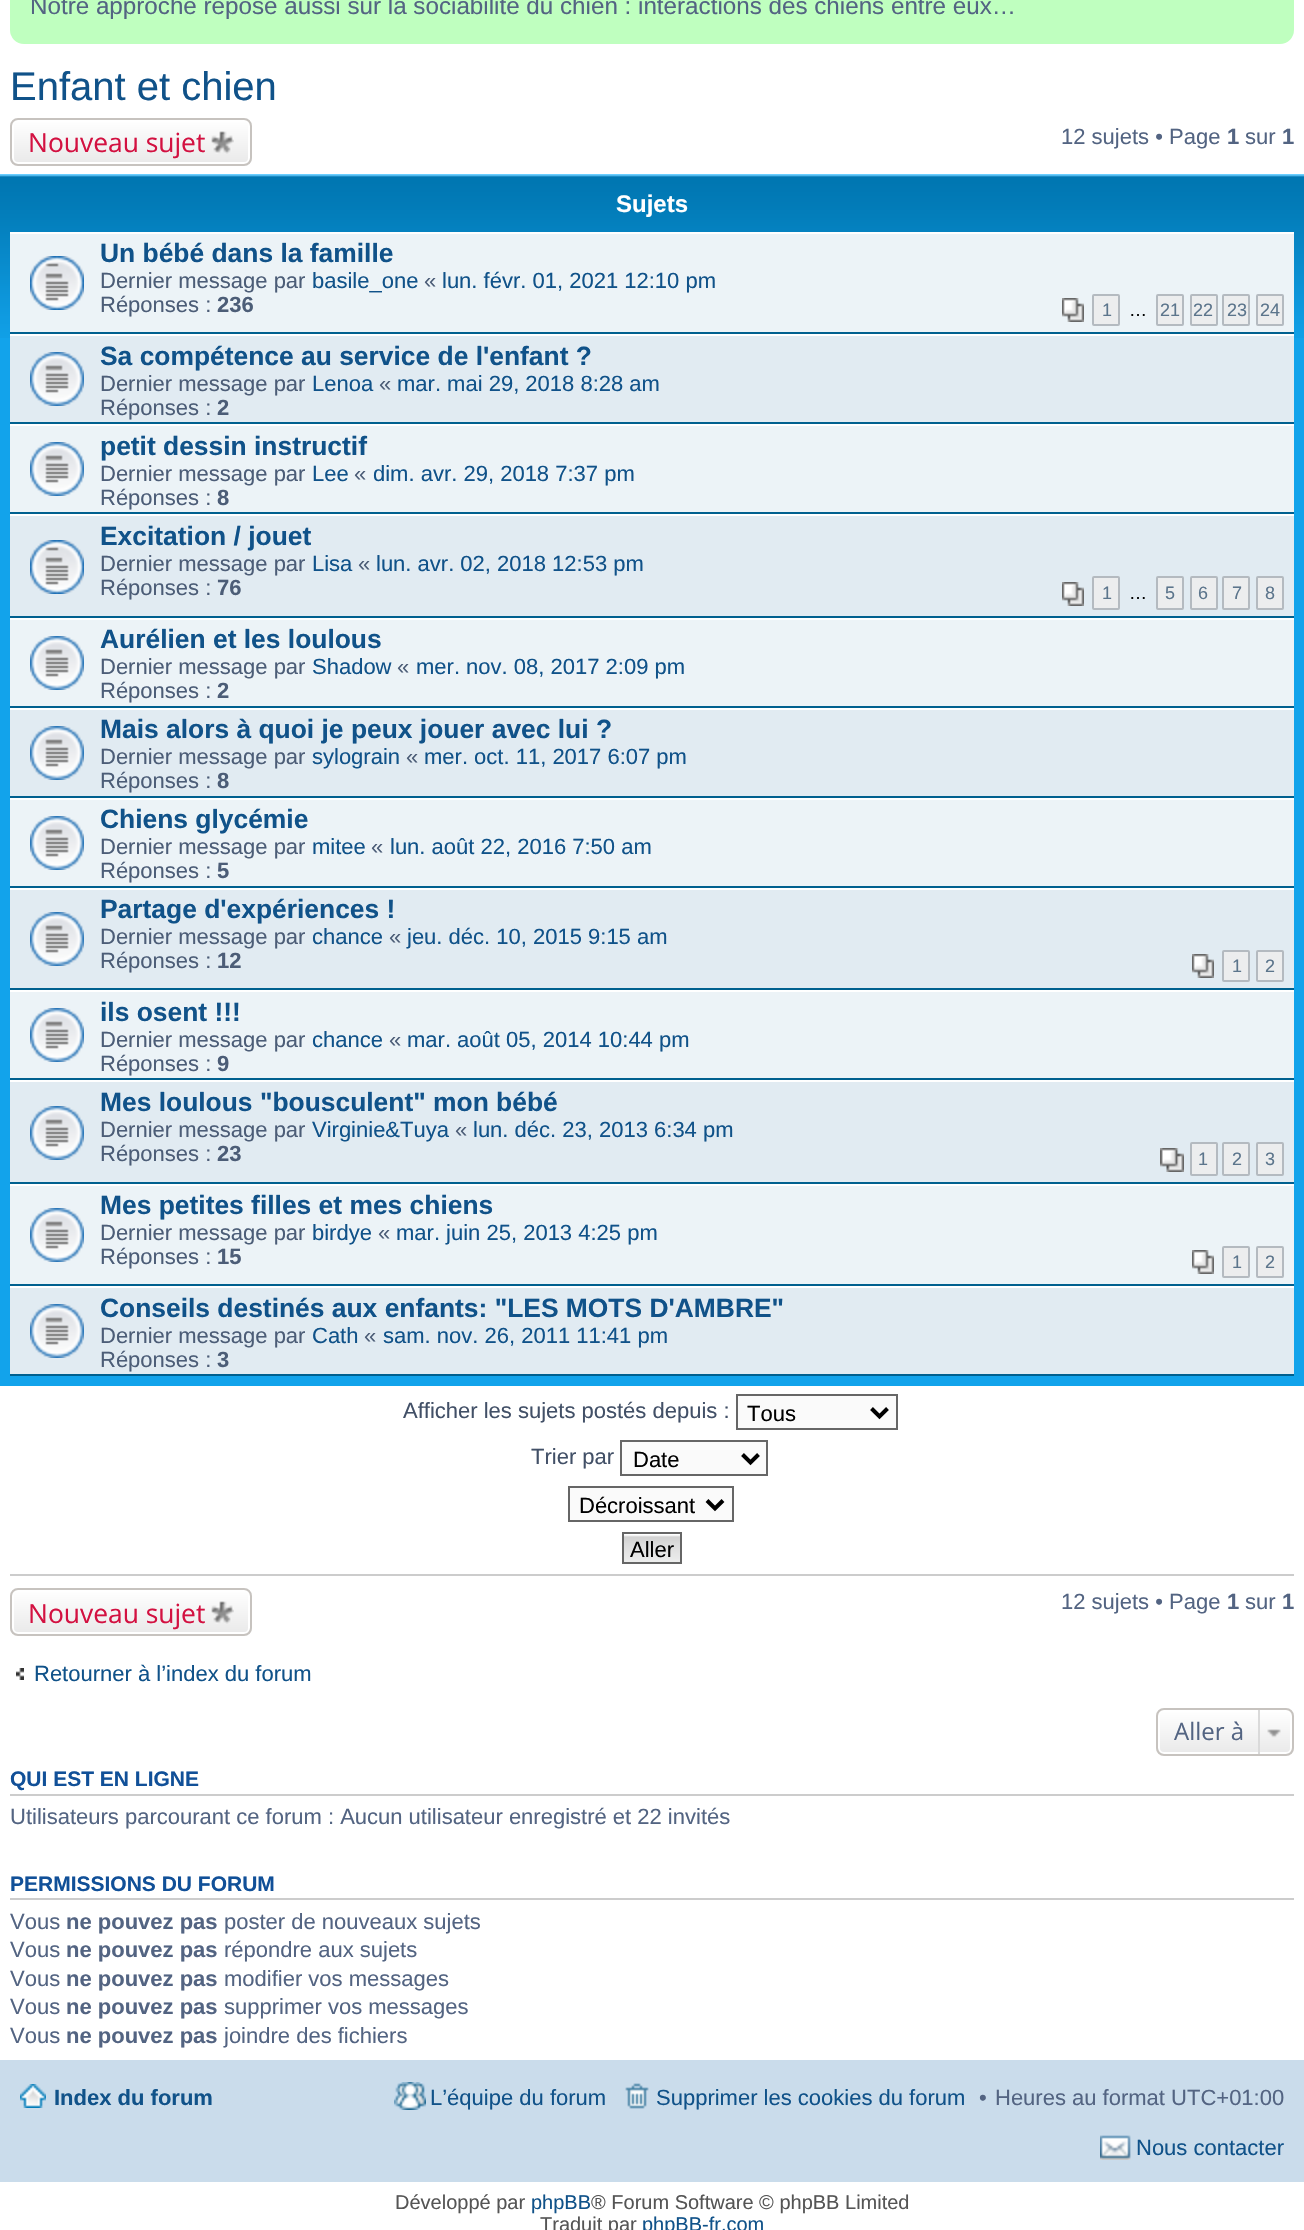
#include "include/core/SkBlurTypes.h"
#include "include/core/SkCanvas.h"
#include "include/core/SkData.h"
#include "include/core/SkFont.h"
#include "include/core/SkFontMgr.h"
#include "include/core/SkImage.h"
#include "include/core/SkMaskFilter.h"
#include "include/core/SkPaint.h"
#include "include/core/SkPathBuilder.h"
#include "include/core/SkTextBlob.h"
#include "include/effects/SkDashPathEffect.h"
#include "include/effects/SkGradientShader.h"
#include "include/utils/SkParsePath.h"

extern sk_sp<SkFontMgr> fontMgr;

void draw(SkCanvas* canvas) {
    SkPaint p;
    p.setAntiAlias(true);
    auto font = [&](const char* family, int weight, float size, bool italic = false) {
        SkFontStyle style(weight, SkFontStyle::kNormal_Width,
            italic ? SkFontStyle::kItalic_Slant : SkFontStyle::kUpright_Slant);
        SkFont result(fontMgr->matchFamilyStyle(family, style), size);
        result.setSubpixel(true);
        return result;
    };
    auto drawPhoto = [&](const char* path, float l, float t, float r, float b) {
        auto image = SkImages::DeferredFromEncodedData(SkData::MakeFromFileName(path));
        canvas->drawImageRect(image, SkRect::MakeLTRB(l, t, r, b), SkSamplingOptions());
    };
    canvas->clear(0xFFFFFFFF);
    p.setColor(0xFFBFFFBF);
    canvas->drawRoundRect(SkRect::MakeLTRB(10, -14, 1294, 44), 14, 14, p);
    auto font1 = font("Liberation Sans", 400, 24.2f);
    p.setColor(0xFF536482);
    canvas->drawString("Notre approche repose aussi sur la sociabilité du chien : interactions des chiens entre eux…", 30, 14, font1, p);
    auto font2 = font("Liberation Sans", 400, 40);
    p.setColor(0xFF105289);
    canvas->drawString("Enfant et chien", 10, 100, font2, p);
    canvas->save();
    canvas->clipPath(SkPathBuilder().moveTo(18, 118).lineTo(244, 118).cubicTo(248.5f, 118, 252, 121.5f, 252, 126).lineTo(252, 158).cubicTo(252, 162.5f, 248.5f, 166, 244, 166).lineTo(18, 166).cubicTo(13.5f, 166, 10, 162.5f, 10, 158).lineTo(10, 126).cubicTo(10, 121.5f, 13.5f, 118, 18, 118).close().detach(), true);
    {
        const SkColor colors[] = {0xFFFFFFFF, 0xFFE9E9E9};
        const float stops[] = {0, 1};
        const SkPoint ends[] = {{131, 120}, {131, 164}};
        p.setShader(SkGradientShader::MakeLinear(ends, colors, stops, 2, SkTileMode::kClamp));
        p.setAlpha(255);
    }
    canvas->drawRect(SkRect::MakeLTRB(10, 120, 252, 164), p);
    canvas->restore();
    p.setStyle(SkPaint::kStroke_Style);
    p.setStrokeWidth(2);
    p.setShader(nullptr);
    p.setColor(0xFFFFFFFF);
    canvas->drawRoundRect(SkRect::MakeLTRB(13, 121, 249, 163), 5, 5, p);
    p.setColor(0xFFC7C3BF);
    canvas->drawRoundRect(SkRect::MakeLTRB(11, 119, 251, 165), 7, 7, p);
    auto font3 = font("Open Sans", 400, 26.4f);
    p.setStyle(SkPaint::kFill_Style);
    p.setColor(0xFFD31141);
    canvas->drawString("Nouveau sujet", 28, 152, font3, p);
    drawPhoto("media/1.png", 211, 131, 234, 154);
    auto font4 = font("Liberation Sans", 400, 22);
    p.setColor(0xFF536482);
    canvas->drawString("12 sujets • Page", 1061, 144, font4, p);
    auto font5 = font("Liberation Sans", 700, 22);
    canvas->drawString("1", 1227, 144, font5, p);
    canvas->drawString("sur", 1245, 144, font4, p);
    canvas->drawString("1", 1282, 144, font5, p);
    p.setColor(0xFF12A3EB);
    canvas->drawRect(SkRect::MakeLTRB(0, 338, 1304, 1386), p);
    drawPhoto("media/2.png", 0, 174, 1304, 338);
    auto font6 = font("Liberation Sans", 700, 24);
    p.setColor(0xFFFFFFFF);
    canvas->drawString("Sujets", 616, 212, font6, p);
    {
        const struct { float l, t, r, b; SkColor color; } items[] = {
            {10, 234, 1294, 332, 0xFFECF3F7},
            {10, 232, 1294, 234, 0xFFFFFFFF},
            {10, 332, 1294, 334, 0xFF00608F},
        };
        for (auto [l, t, r, b, color] : items) {
            p.setColor(color);
            canvas->drawRect(SkRect::MakeLTRB(l, t, r, b), p);
        }
    }
    drawPhoto("media/3.png", 30, 256, 84, 310);
    auto font7 = font("Liberation Sans", 700, 26.4f);
    p.setColor(0xFF105289);
    canvas->drawString("Un bébé dans la famille", 100, 262, font7, p);
    p.setColor(0xFF4C5D77);
    canvas->drawString("Dernier message par", 100, 288, font4, p);
    p.setColor(0xFF105289);
    canvas->drawString("basile_one", 312, 288, font4, p);
    p.setColor(0xFF4C5D77);
    canvas->drawString("«", 424, 288, font4, p);
    p.setColor(0xFF105289);
    canvas->drawString("lun. févr. 01, 2021 12:10 pm", 442, 288, font4, p);
    p.setColor(0xFF4C5D77);
    canvas->drawString("Réponses :", 100, 312, font4, p);
    canvas->drawString("236", 217, 312, font5, p);
    drawPhoto("media/4.png", 1062, 298, 1084, 322);
    p.setColor(0xFFECEDEE);
    canvas->drawRoundRect(SkRect::MakeLTRB(1093, 295, 1119, 325), 1, 1, p);
    p.setStyle(SkPaint::kStroke_Style);
    p.setColor(0xFFB4BAC0);
    canvas->drawRoundRect(SkRect::MakeLTRB(1093, 295, 1119, 325), 1, 1, p);
    auto font8 = font("Liberation Sans", 400, 18);
    p.setStyle(SkPaint::kFill_Style);
    p.setColor(0xFF5C758C);
    canvas->drawString("1", 1102, 316, font8, p);
    p.setColor(0xFF000000);
    canvas->drawString("…", 1129, 316, font8, p);
    p.setColor(0xFFECEDEE);
    canvas->drawRoundRect(SkRect::MakeLTRB(1157, 295, 1183, 325), 1, 1, p);
    p.setStyle(SkPaint::kStroke_Style);
    p.setColor(0xFFB4BAC0);
    canvas->drawRoundRect(SkRect::MakeLTRB(1157, 295, 1183, 325), 1, 1, p);
    p.setStyle(SkPaint::kFill_Style);
    p.setColor(0xFF5C758C);
    canvas->drawString("21", 1160, 316, font8, p);
    p.setColor(0xFFECEDEE);
    canvas->drawRoundRect(SkRect::MakeLTRB(1191, 295, 1217, 325), 1, 1, p);
    p.setStyle(SkPaint::kStroke_Style);
    p.setColor(0xFFB4BAC0);
    canvas->drawRoundRect(SkRect::MakeLTRB(1191, 295, 1217, 325), 1, 1, p);
    p.setStyle(SkPaint::kFill_Style);
    p.setColor(0xFF5C758C);
    canvas->drawString("22", 1193, 316, font8, p);
    p.setColor(0xFFECEDEE);
    canvas->drawRoundRect(SkRect::MakeLTRB(1223, 295, 1249, 325), 1, 1, p);
    p.setStyle(SkPaint::kStroke_Style);
    p.setColor(0xFFB4BAC0);
    canvas->drawRoundRect(SkRect::MakeLTRB(1223, 295, 1249, 325), 1, 1, p);
    p.setStyle(SkPaint::kFill_Style);
    p.setColor(0xFF5C758C);
    canvas->drawString("23", 1227, 316, font8, p);
    p.setColor(0xFFECEDEE);
    canvas->drawRoundRect(SkRect::MakeLTRB(1257, 295, 1283, 325), 1, 1, p);
    p.setStyle(SkPaint::kStroke_Style);
    p.setColor(0xFFB4BAC0);
    canvas->drawRoundRect(SkRect::MakeLTRB(1257, 295, 1283, 325), 1, 1, p);
    p.setStyle(SkPaint::kFill_Style);
    p.setColor(0xFF5C758C);
    canvas->drawString("24", 1260, 316, font8, p);
    {
        const struct { float l, t, r, b; SkColor color; } items[] = {
            {10, 336, 1294, 422, 0xFFE1EBF2},
            {10, 334, 1294, 336, 0xFFFFFFFF},
            {10, 422, 1294, 424, 0xFF00608F},
        };
        for (auto [l, t, r, b, color] : items) {
            p.setColor(color);
            canvas->drawRect(SkRect::MakeLTRB(l, t, r, b), p);
        }
    }
    drawPhoto("media/5.png", 30, 352, 84, 406);
    p.setColor(0xFF105289);
    canvas->drawString("Sa compétence au service de l'enfant ?", 100, 365, font7, p);
    p.setColor(0xFF4C5D77);
    canvas->drawString("Dernier message par", 100, 391, font4, p);
    p.setColor(0xFF105289);
    canvas->drawString("Lenoa", 312, 391, font4, p);
    p.setColor(0xFF4C5D77);
    canvas->drawString("«", 379, 391, font4, p);
    p.setColor(0xFF105289);
    canvas->drawString("mar. mai 29, 2018 8:28 am", 397, 391, font4, p);
    p.setColor(0xFF4C5D77);
    canvas->drawString("Réponses :", 100, 415, font4, p);
    canvas->drawString("2", 217, 415, font5, p);
    {
        const struct { float l, t, r, b; SkColor color; } items[] = {
            {10, 426, 1294, 512, 0xFFECF3F7},
            {10, 424, 1294, 426, 0xFFFFFFFF},
            {10, 512, 1294, 514, 0xFF00608F},
        };
        for (auto [l, t, r, b, color] : items) {
            p.setColor(color);
            canvas->drawRect(SkRect::MakeLTRB(l, t, r, b), p);
        }
    }
    drawPhoto("media/6.png", 30, 442, 84, 496);
    p.setColor(0xFF105289);
    canvas->drawString("petit dessin instructif", 100, 455, font7, p);
    p.setColor(0xFF4C5D77);
    canvas->drawString("Dernier message par", 100, 481, font4, p);
    p.setColor(0xFF105289);
    canvas->drawString("Lee", 312, 481, font4, p);
    p.setColor(0xFF4C5D77);
    canvas->drawString("«", 354, 481, font4, p);
    p.setColor(0xFF105289);
    canvas->drawString("dim. avr. 29, 2018 7:37 pm", 373, 481, font4, p);
    p.setColor(0xFF4C5D77);
    canvas->drawString("Réponses :", 100, 505, font4, p);
    canvas->drawString("8", 217, 505, font5, p);
    {
        const struct { float l, t, r, b; SkColor color; } items[] = {
            {10, 516, 1294, 616, 0xFFE1EBF2},
            {10, 514, 1294, 516, 0xFFFFFFFF},
            {10, 616, 1294, 618, 0xFF00608F},
        };
        for (auto [l, t, r, b, color] : items) {
            p.setColor(color);
            canvas->drawRect(SkRect::MakeLTRB(l, t, r, b), p);
        }
    }
    drawPhoto("media/7.png", 30, 540, 84, 594);
    p.setColor(0xFF105289);
    canvas->drawString("Excitation / jouet", 100, 545, font7, p);
    p.setColor(0xFF4C5D77);
    canvas->drawString("Dernier message par", 100, 571, font4, p);
    p.setColor(0xFF105289);
    canvas->drawString("Lisa", 312, 571, font4, p);
    p.setColor(0xFF4C5D77);
    canvas->drawString("«", 358, 571, font4, p);
    p.setColor(0xFF105289);
    canvas->drawString("lun. avr. 02, 2018 12:53 pm", 376, 571, font4, p);
    p.setColor(0xFF4C5D77);
    canvas->drawString("Réponses :", 100, 595, font4, p);
    canvas->drawString("76", 217, 595, font5, p);
    drawPhoto("media/8.png", 1062, 582, 1084, 606);
    p.setColor(0xFFECEDEE);
    canvas->drawRoundRect(SkRect::MakeLTRB(1093, 577, 1119, 609), 1, 1, p);
    p.setStyle(SkPaint::kStroke_Style);
    p.setColor(0xFFB4BAC0);
    canvas->drawRoundRect(SkRect::MakeLTRB(1093, 577, 1119, 609), 1, 1, p);
    p.setStyle(SkPaint::kFill_Style);
    p.setColor(0xFF5C758C);
    canvas->drawString("1", 1102, 599, font8, p);
    p.setColor(0xFF000000);
    canvas->drawString("…", 1129, 599, font8, p);
    p.setColor(0xFFECEDEE);
    canvas->drawRoundRect(SkRect::MakeLTRB(1157, 577, 1183, 609), 1, 1, p);
    p.setStyle(SkPaint::kStroke_Style);
    p.setColor(0xFFB4BAC0);
    canvas->drawRoundRect(SkRect::MakeLTRB(1157, 577, 1183, 609), 1, 1, p);
    p.setStyle(SkPaint::kFill_Style);
    p.setColor(0xFF5C758C);
    canvas->drawString("5", 1165, 599, font8, p);
    p.setColor(0xFFECEDEE);
    canvas->drawRoundRect(SkRect::MakeLTRB(1191, 577, 1217, 609), 1, 1, p);
    p.setStyle(SkPaint::kStroke_Style);
    p.setColor(0xFFB4BAC0);
    canvas->drawRoundRect(SkRect::MakeLTRB(1191, 577, 1217, 609), 1, 1, p);
    p.setStyle(SkPaint::kFill_Style);
    p.setColor(0xFF5C758C);
    canvas->drawString("6", 1198, 599, font8, p);
    p.setColor(0xFFECEDEE);
    canvas->drawRoundRect(SkRect::MakeLTRB(1223, 577, 1249, 609), 1, 1, p);
    p.setStyle(SkPaint::kStroke_Style);
    p.setColor(0xFFB4BAC0);
    canvas->drawRoundRect(SkRect::MakeLTRB(1223, 577, 1249, 609), 1, 1, p);
    p.setStyle(SkPaint::kFill_Style);
    p.setColor(0xFF5C758C);
    canvas->drawString("7", 1232, 599, font8, p);
    p.setColor(0xFFECEDEE);
    canvas->drawRoundRect(SkRect::MakeLTRB(1257, 577, 1283, 609), 1, 1, p);
    p.setStyle(SkPaint::kStroke_Style);
    p.setColor(0xFFB4BAC0);
    canvas->drawRoundRect(SkRect::MakeLTRB(1257, 577, 1283, 609), 1, 1, p);
    p.setStyle(SkPaint::kFill_Style);
    p.setColor(0xFF5C758C);
    canvas->drawString("8", 1265, 599, font8, p);
    {
        const struct { float l, t, r, b; SkColor color; } items[] = {
            {10, 620, 1294, 706, 0xFFECF3F7},
            {10, 618, 1294, 620, 0xFFFFFFFF},
            {10, 706, 1294, 708, 0xFF00608F},
        };
        for (auto [l, t, r, b, color] : items) {
            p.setColor(color);
            canvas->drawRect(SkRect::MakeLTRB(l, t, r, b), p);
        }
    }
    drawPhoto("media/6.png", 30, 636, 84, 690);
    p.setColor(0xFF105289);
    canvas->drawString("Aurélien et les loulous", 100, 648, font7, p);
    p.setColor(0xFF4C5D77);
    canvas->drawString("Dernier message par", 100, 674, font4, p);
    p.setColor(0xFF105289);
    canvas->drawString("Shadow", 312, 674, font4, p);
    p.setColor(0xFF4C5D77);
    canvas->drawString("«", 397, 674, font4, p);
    p.setColor(0xFF105289);
    canvas->drawString("mer. nov. 08, 2017 2:09 pm", 416, 674, font4, p);
    p.setColor(0xFF4C5D77);
    canvas->drawString("Réponses :", 100, 698, font4, p);
    canvas->drawString("2", 217, 698, font5, p);
    {
        const struct { float l, t, r, b; SkColor color; } items[] = {
            {10, 710, 1294, 796, 0xFFE1EBF2},
            {10, 708, 1294, 710, 0xFFFFFFFF},
            {10, 796, 1294, 798, 0xFF00608F},
        };
        for (auto [l, t, r, b, color] : items) {
            p.setColor(color);
            canvas->drawRect(SkRect::MakeLTRB(l, t, r, b), p);
        }
    }
    drawPhoto("media/5.png", 30, 726, 84, 780);
    p.setColor(0xFF105289);
    canvas->drawString("Mais alors à quoi je peux jouer avec lui ?", 100, 738, font7, p);
    p.setColor(0xFF4C5D77);
    canvas->drawString("Dernier message par", 100, 764, font4, p);
    p.setColor(0xFF105289);
    canvas->drawString("sylograin", 312, 764, font4, p);
    p.setColor(0xFF4C5D77);
    canvas->drawString("«", 406, 764, font4, p);
    p.setColor(0xFF105289);
    canvas->drawString("mer. oct. 11, 2017 6:07 pm", 424, 764, font4, p);
    p.setColor(0xFF4C5D77);
    canvas->drawString("Réponses :", 100, 788, font4, p);
    canvas->drawString("8", 217, 788, font5, p);
    {
        const struct { float l, t, r, b; SkColor color; } items[] = {
            {10, 800, 1294, 886, 0xFFECF3F7},
            {10, 798, 1294, 800, 0xFFFFFFFF},
            {10, 886, 1294, 888, 0xFF00608F},
        };
        for (auto [l, t, r, b, color] : items) {
            p.setColor(color);
            canvas->drawRect(SkRect::MakeLTRB(l, t, r, b), p);
        }
    }
    drawPhoto("media/6.png", 30, 816, 84, 870);
    p.setColor(0xFF105289);
    canvas->drawString("Chiens glycémie", 100, 828, font7, p);
    p.setColor(0xFF4C5D77);
    canvas->drawString("Dernier message par", 100, 854, font4, p);
    p.setColor(0xFF105289);
    canvas->drawString("mitee", 312, 854, font4, p);
    p.setColor(0xFF4C5D77);
    canvas->drawString("«", 371, 854, font4, p);
    p.setColor(0xFF105289);
    canvas->drawString("lun. août 22, 2016 7:50 am", 390, 854, font4, p);
    p.setColor(0xFF4C5D77);
    canvas->drawString("Réponses :", 100, 878, font4, p);
    canvas->drawString("5", 217, 878, font5, p);
    {
        const struct { float l, t, r, b; SkColor color; } items[] = {
            {10, 890, 1294, 988, 0xFFE1EBF2},
            {10, 888, 1294, 890, 0xFFFFFFFF},
            {10, 988, 1294, 990, 0xFF00608F},
        };
        for (auto [l, t, r, b, color] : items) {
            p.setColor(color);
            canvas->drawRect(SkRect::MakeLTRB(l, t, r, b), p);
        }
    }
    drawPhoto("media/5.png", 30, 912, 84, 966);
    p.setColor(0xFF105289);
    canvas->drawString("Partage d'expériences !", 100, 918, font7, p);
    p.setColor(0xFF4C5D77);
    canvas->drawString("Dernier message par", 100, 944, font4, p);
    p.setColor(0xFF105289);
    canvas->drawString("chance", 312, 944, font4, p);
    p.setColor(0xFF4C5D77);
    canvas->drawString("«", 389, 944, font4, p);
    p.setColor(0xFF105289);
    canvas->drawString("jeu. déc. 10, 2015 9:15 am", 407, 944, font4, p);
    p.setColor(0xFF4C5D77);
    canvas->drawString("Réponses :", 100, 968, font4, p);
    canvas->drawString("12", 217, 968, font5, p);
    drawPhoto("media/8.png", 1192, 954, 1214, 978);
    p.setColor(0xFFECEDEE);
    canvas->drawRoundRect(SkRect::MakeLTRB(1223, 951, 1249, 981), 1, 1, p);
    p.setStyle(SkPaint::kStroke_Style);
    p.setColor(0xFFB4BAC0);
    canvas->drawRoundRect(SkRect::MakeLTRB(1223, 951, 1249, 981), 1, 1, p);
    p.setStyle(SkPaint::kFill_Style);
    p.setColor(0xFF5C758C);
    canvas->drawString("1", 1232, 972, font8, p);
    p.setColor(0xFFECEDEE);
    canvas->drawRoundRect(SkRect::MakeLTRB(1257, 951, 1283, 981), 1, 1, p);
    p.setStyle(SkPaint::kStroke_Style);
    p.setColor(0xFFB4BAC0);
    canvas->drawRoundRect(SkRect::MakeLTRB(1257, 951, 1283, 981), 1, 1, p);
    p.setStyle(SkPaint::kFill_Style);
    p.setColor(0xFF5C758C);
    canvas->drawString("2", 1265, 972, font8, p);
    {
        const struct { float l, t, r, b; SkColor color; } items[] = {
            {10, 992, 1294, 1078, 0xFFECF3F7},
            {10, 990, 1294, 992, 0xFFFFFFFF},
            {10, 1078, 1294, 1080, 0xFF00608F},
        };
        for (auto [l, t, r, b, color] : items) {
            p.setColor(color);
            canvas->drawRect(SkRect::MakeLTRB(l, t, r, b), p);
        }
    }
    drawPhoto("media/6.png", 30, 1008, 84, 1062);
    p.setColor(0xFF105289);
    canvas->drawString("ils osent !!!", 100, 1021, font7, p);
    p.setColor(0xFF4C5D77);
    canvas->drawString("Dernier message par", 100, 1047, font4, p);
    p.setColor(0xFF105289);
    canvas->drawString("chance", 312, 1047, font4, p);
    p.setColor(0xFF4C5D77);
    canvas->drawString("«", 389, 1047, font4, p);
    p.setColor(0xFF105289);
    canvas->drawString("mar. août 05, 2014 10:44 pm", 407, 1047, font4, p);
    p.setColor(0xFF4C5D77);
    canvas->drawString("Réponses :", 100, 1071, font4, p);
    canvas->drawString("9", 217, 1071, font5, p);
    {
        const struct { float l, t, r, b; SkColor color; } items[] = {
            {10, 1082, 1294, 1182, 0xFFE1EBF2},
            {10, 1080, 1294, 1082, 0xFFFFFFFF},
            {10, 1182, 1294, 1184, 0xFF00608F},
        };
        for (auto [l, t, r, b, color] : items) {
            p.setColor(color);
            canvas->drawRect(SkRect::MakeLTRB(l, t, r, b), p);
        }
    }
    drawPhoto("media/5.png", 30, 1106, 84, 1160);
    p.setColor(0xFF105289);
    canvas->drawString("Mes loulous \"bousculent\" mon bébé", 100, 1111, font7, p);
    p.setColor(0xFF4C5D77);
    canvas->drawString("Dernier message par", 100, 1137, font4, p);
    p.setColor(0xFF105289);
    canvas->drawString("Virginie&Tuya", 312, 1137, font4, p);
    p.setColor(0xFF4C5D77);
    canvas->drawString("«", 455, 1137, font4, p);
    p.setColor(0xFF105289);
    canvas->drawString("lun. déc. 23, 2013 6:34 pm", 473, 1137, font4, p);
    p.setColor(0xFF4C5D77);
    canvas->drawString("Réponses :", 100, 1161, font4, p);
    canvas->drawString("23", 217, 1161, font5, p);
    drawPhoto("media/9.png", 1160, 1148, 1184, 1172);
    p.setColor(0xFFECEDEE);
    canvas->drawRoundRect(SkRect::MakeLTRB(1191, 1143, 1217, 1175), 1, 1, p);
    p.setStyle(SkPaint::kStroke_Style);
    p.setColor(0xFFB4BAC0);
    canvas->drawRoundRect(SkRect::MakeLTRB(1191, 1143, 1217, 1175), 1, 1, p);
    p.setStyle(SkPaint::kFill_Style);
    p.setColor(0xFF5C758C);
    canvas->drawString("1", 1198, 1165, font8, p);
    p.setColor(0xFFECEDEE);
    canvas->drawRoundRect(SkRect::MakeLTRB(1223, 1143, 1249, 1175), 1, 1, p);
    p.setStyle(SkPaint::kStroke_Style);
    p.setColor(0xFFB4BAC0);
    canvas->drawRoundRect(SkRect::MakeLTRB(1223, 1143, 1249, 1175), 1, 1, p);
    p.setStyle(SkPaint::kFill_Style);
    p.setColor(0xFF5C758C);
    canvas->drawString("2", 1232, 1165, font8, p);
    p.setColor(0xFFECEDEE);
    canvas->drawRoundRect(SkRect::MakeLTRB(1257, 1143, 1283, 1175), 1, 1, p);
    p.setStyle(SkPaint::kStroke_Style);
    p.setColor(0xFFB4BAC0);
    canvas->drawRoundRect(SkRect::MakeLTRB(1257, 1143, 1283, 1175), 1, 1, p);
    p.setStyle(SkPaint::kFill_Style);
    p.setColor(0xFF5C758C);
    canvas->drawString("3", 1265, 1165, font8, p);
    {
        const struct { float l, t, r, b; SkColor color; } items[] = {
            {10, 1186, 1294, 1284, 0xFFECF3F7},
            {10, 1184, 1294, 1186, 0xFFFFFFFF},
            {10, 1284, 1294, 1286, 0xFF00608F},
        };
        for (auto [l, t, r, b, color] : items) {
            p.setColor(color);
            canvas->drawRect(SkRect::MakeLTRB(l, t, r, b), p);
        }
    }
    drawPhoto("media/6.png", 30, 1208, 84, 1262);
    p.setColor(0xFF105289);
    canvas->drawString("Mes petites filles et mes chiens", 100, 1214, font7, p);
    p.setColor(0xFF4C5D77);
    canvas->drawString("Dernier message par", 100, 1240, font4, p);
    p.setColor(0xFF105289);
    canvas->drawString("birdye", 312, 1240, font4, p);
    p.setColor(0xFF4C5D77);
    canvas->drawString("«", 378, 1240, font4, p);
    p.setColor(0xFF105289);
    canvas->drawString("mar. juin 25, 2013 4:25 pm", 396, 1240, font4, p);
    p.setColor(0xFF4C5D77);
    canvas->drawString("Réponses :", 100, 1264, font4, p);
    canvas->drawString("15", 217, 1264, font5, p);
    drawPhoto("media/4.png", 1192, 1250, 1214, 1274);
    p.setColor(0xFFECEDEE);
    canvas->drawRoundRect(SkRect::MakeLTRB(1223, 1247, 1249, 1277), 1, 1, p);
    p.setStyle(SkPaint::kStroke_Style);
    p.setColor(0xFFB4BAC0);
    canvas->drawRoundRect(SkRect::MakeLTRB(1223, 1247, 1249, 1277), 1, 1, p);
    p.setStyle(SkPaint::kFill_Style);
    p.setColor(0xFF5C758C);
    canvas->drawString("1", 1232, 1268, font8, p);
    p.setColor(0xFFECEDEE);
    canvas->drawRoundRect(SkRect::MakeLTRB(1257, 1247, 1283, 1277), 1, 1, p);
    p.setStyle(SkPaint::kStroke_Style);
    p.setColor(0xFFB4BAC0);
    canvas->drawRoundRect(SkRect::MakeLTRB(1257, 1247, 1283, 1277), 1, 1, p);
    p.setStyle(SkPaint::kFill_Style);
    p.setColor(0xFF5C758C);
    canvas->drawString("2", 1265, 1268, font8, p);
    {
        const struct { float l, t, r, b; SkColor color; } items[] = {
            {10, 1288, 1294, 1374, 0xFFE1EBF2},
            {10, 1286, 1294, 1288, 0xFFFFFFFF},
            {10, 1374, 1294, 1376, 0xFF00608F},
        };
        for (auto [l, t, r, b, color] : items) {
            p.setColor(color);
            canvas->drawRect(SkRect::MakeLTRB(l, t, r, b), p);
        }
    }
    drawPhoto("media/5.png", 30, 1304, 84, 1358);
    p.setColor(0xFF105289);
    canvas->drawString("Conseils destinés aux enfants: \"LES MOTS D'AMBRE\"", 100, 1317, font7, p);
    p.setColor(0xFF4C5D77);
    canvas->drawString("Dernier message par", 100, 1343, font4, p);
    p.setColor(0xFF105289);
    canvas->drawString("Cath", 312, 1343, font4, p);
    p.setColor(0xFF4C5D77);
    canvas->drawString("«", 364, 1343, font4, p);
    p.setColor(0xFF105289);
    canvas->drawString("sam. nov. 26, 2011 11:41 pm", 383, 1343, font4, p);
    p.setColor(0xFF4C5D77);
    canvas->drawString("Réponses :", 100, 1367, font4, p);
    canvas->drawString("3", 217, 1367, font5, p);
    p.setColor(0xFF425067);
    canvas->drawString("Afficher les sujets postés depuis :", 403, 1418, font4, p);
    p.setColor(0xFFFAFAFA);
    canvas->drawRect(SkRect::MakeLTRB(737, 1395, 897, 1429), p);
    p.setStyle(SkPaint::kStroke_Style);
    p.setColor(0xFF666666);
    canvas->drawRect(SkRect::MakeLTRB(737, 1395, 897, 1429), p);
    p.setStrokeWidth(4);
    p.setColor(0xFF000000);
    canvas->drawPath(SkPathBuilder().moveTo(871.5f, 1408.5f).lineTo(879.5f, 1416.5f).lineTo(887.5f, 1408.5f).detach(), p);
    p.setStyle(SkPaint::kFill_Style);
    canvas->drawString("Tous", 747, 1421, font4, p);
    p.setColor(0xFF425067);
    canvas->drawString("Trier par", 531, 1464, font4, p);
    p.setColor(0xFFFAFAFA);
    canvas->drawRect(SkRect::MakeLTRB(621, 1441, 767, 1475), p);
    p.setStyle(SkPaint::kStroke_Style);
    p.setStrokeWidth(2);
    p.setColor(0xFF666666);
    canvas->drawRect(SkRect::MakeLTRB(621, 1441, 767, 1475), p);
    p.setStrokeWidth(4);
    p.setColor(0xFF000000);
    canvas->drawPath(SkPathBuilder().moveTo(742.5f, 1454.5f).lineTo(750.5f, 1462.5f).lineTo(758.5f, 1454.5f).detach(), p);
    p.setStyle(SkPaint::kFill_Style);
    canvas->drawString("Date", 633, 1467, font4, p);
    p.setColor(0xFFFAFAFA);
    canvas->drawRect(SkRect::MakeLTRB(569, 1487, 733, 1521), p);
    p.setStyle(SkPaint::kStroke_Style);
    p.setStrokeWidth(2);
    p.setColor(0xFF666666);
    canvas->drawRect(SkRect::MakeLTRB(569, 1487, 733, 1521), p);
    p.setStrokeWidth(4);
    p.setColor(0xFF000000);
    canvas->drawPath(SkPathBuilder().moveTo(707, 1500.5f).lineTo(715, 1508.5f).lineTo(723, 1500.5f).detach(), p);
    p.setStyle(SkPaint::kFill_Style);
    canvas->drawString("Décroissant", 579, 1513, font4, p);
    drawPhoto("media/10.png", 624, 1534, 680, 1562);
    p.setStyle(SkPaint::kStroke_Style);
    p.setStrokeWidth(2);
    p.setColor(0xFF666666);
    canvas->drawRect(SkRect::MakeLTRB(623, 1533, 681, 1563), p);
    p.setStyle(SkPaint::kFill_Style);
    p.setColor(0xFF000000);
    canvas->drawString("Aller", 630, 1557, font4, p);
    p.setColor(0xFFCCCCCC);
    canvas->drawRect(SkRect::MakeLTRB(10, 1574, 1294, 1576), p);
    canvas->save();
    canvas->clipPath(SkPathBuilder().moveTo(18, 1588).lineTo(244, 1588).cubicTo(248.5f, 1588, 252, 1591.5f, 252, 1596).lineTo(252, 1628).cubicTo(252, 1632.5f, 248.5f, 1636, 244, 1636).lineTo(18, 1636).cubicTo(13.5f, 1636, 10, 1632.5f, 10, 1628).lineTo(10, 1596).cubicTo(10, 1591.5f, 13.5f, 1588, 18, 1588).close().detach(), true);
    {
        const SkColor colors[] = {0xFFFFFFFF, 0xFFE9E9E9};
        const float stops[] = {0, 1};
        const SkPoint ends[] = {{131, 1590}, {131, 1634}};
        p.setShader(SkGradientShader::MakeLinear(ends, colors, stops, 2, SkTileMode::kClamp));
        p.setAlpha(255);
    }
    canvas->drawRect(SkRect::MakeLTRB(10, 1590, 252, 1634), p);
    canvas->restore();
    p.setStyle(SkPaint::kStroke_Style);
    p.setShader(nullptr);
    p.setColor(0xFFFFFFFF);
    canvas->drawRoundRect(SkRect::MakeLTRB(13, 1591, 249, 1633), 5, 5, p);
    p.setColor(0xFFC7C3BF);
    canvas->drawRoundRect(SkRect::MakeLTRB(11, 1589, 251, 1635), 7, 7, p);
    p.setStyle(SkPaint::kFill_Style);
    p.setColor(0xFFD31141);
    canvas->drawString("Nouveau sujet", 28, 1623, font3, p);
    drawPhoto("media/1.png", 211, 1601, 234, 1624);
    p.setColor(0xFF536482);
    canvas->drawString("12 sujets • Page", 1061, 1609, font4, p);
    canvas->drawString("1", 1227, 1609, font5, p);
    canvas->drawString("sur", 1245, 1609, font4, p);
    canvas->drawString("1", 1282, 1609, font5, p);
    drawPhoto("media/11.png", 16, 1668, 24, 1680);
    p.setColor(0xFF105289);
    canvas->drawString("Retourner à l’index du forum", 34, 1681, font4, p);
    canvas->save();
    canvas->clipPath(SkPathBuilder().moveTo(1164, 1708).lineTo(1286, 1708).cubicTo(1290.5f, 1708, 1294, 1711.5f, 1294, 1716).lineTo(1294, 1748).cubicTo(1294, 1752.5f, 1290.5f, 1756, 1286, 1756).lineTo(1164, 1756).cubicTo(1159.5f, 1756, 1156, 1752.5f, 1156, 1748).lineTo(1156, 1716).cubicTo(1156, 1711.5f, 1159.5f, 1708, 1164, 1708).close().detach(), true);
    {
        const SkColor colors[] = {0xFFFFFFFF, 0xFFE9E9E9};
        const float stops[] = {0, 1};
        const SkPoint ends[] = {{1225, 1710}, {1225, 1754}};
        p.setShader(SkGradientShader::MakeLinear(ends, colors, stops, 2, SkTileMode::kClamp));
        p.setAlpha(255);
    }
    canvas->drawRect(SkRect::MakeLTRB(1156, 1710, 1294, 1754), p);
    canvas->restore();
    p.setStyle(SkPaint::kStroke_Style);
    p.setShader(nullptr);
    p.setColor(0xFFFFFFFF);
    canvas->drawRoundRect(SkRect::MakeLTRB(1159, 1711, 1291, 1753), 5, 5, p);
    p.setColor(0xFFC7C3BF);
    canvas->drawRoundRect(SkRect::MakeLTRB(1157, 1709, 1293, 1755), 7, 7, p);
    auto font9 = font("Open Sans", 400, 24);
    p.setStyle(SkPaint::kFill_Style);
    p.setColor(0xFF536482);
    canvas->drawString("Aller à", 1174, 1740, font9, p);
    drawPhoto("media/12.png", 1267, 1729, 1281, 1738);
    p.setColor(0xFFDADADA);
    canvas->drawRect(SkRect::MakeLTRB(1258, 1710, 1260, 1754), p);
    p.setColor(0xFFCCCCCC);
    canvas->drawRect(SkRect::MakeLTRB(10, 1794, 1294, 1796), p);
    auto font10 = font("Liberation Sans", 700, 21);
    p.setColor(0xFF115098);
    canvas->drawString("QUI EST EN LIGNE", 10, 1786, font10, p);
    p.setColor(0xFF536482);
    canvas->drawString("Utilisateurs parcourant ce forum : Aucun utilisateur enregistré et 22 invités", 10, 1824, font4, p);
    p.setColor(0xFFCCCCCC);
    canvas->drawRect(SkRect::MakeLTRB(10, 1898, 1294, 1900), p);
    p.setColor(0xFF115098);
    canvas->drawString("PERMISSIONS DU FORUM", 10, 1891, font10, p);
    p.setColor(0xFF536482);
    canvas->drawString("Vous", 10, 1929, font4, p);
    canvas->drawString("ne pouvez pas", 66, 1929, font5, p);
    canvas->drawString("poster de nouveaux sujets", 224, 1929, font4, p);
    canvas->drawString("Vous", 10, 1957, font4, p);
    canvas->drawString("ne pouvez pas", 66, 1957, font5, p);
    canvas->drawString("répondre aux sujets", 224, 1957, font4, p);
    canvas->drawString("Vous", 10, 1986, font4, p);
    canvas->drawString("ne pouvez pas", 66, 1986, font5, p);
    canvas->drawString("modifier vos messages", 224, 1986, font4, p);
    canvas->drawString("Vous", 10, 2014, font4, p);
    canvas->drawString("ne pouvez pas", 66, 2014, font5, p);
    canvas->drawString("supprimer vos messages", 224, 2014, font4, p);
    canvas->drawString("Vous", 10, 2043, font4, p);
    canvas->drawString("ne pouvez pas", 66, 2043, font5, p);
    canvas->drawString("joindre des fichiers", 224, 2043, font4, p);
    p.setColor(0xFFCADCEB);
    canvas->drawRect(SkRect::MakeLTRB(0, 2060, 1304, 2182), p);
    drawPhoto("media/13.png", 20, 2084, 46, 2108);
    p.setColor(0xFF105289);
    canvas->drawString("Index du forum", 54, 2105, font5, p);
    drawPhoto("media/14.png", 394, 2082, 426, 2110);
    canvas->drawString("L’équipe du forum", 430, 2105, font4, p);
    drawPhoto("media/15.png", 625, 2083, 649, 2109);
    canvas->drawString("Supprimer les cookies du forum", 656, 2105, font4, p);
    p.setColor(0xFF536482);
    canvas->drawString("•", 979, 2105, font4, p);
    canvas->drawString("Heures au format UTC+01:00", 995, 2105, font4, p);
    drawPhoto("media/16.png", 1100, 2135, 1131, 2160);
    p.setColor(0xFF105289);
    canvas->drawString("Nous contacter", 1136, 2155, font4, p);
    auto font11 = font("Liberation Sans", 400, 20);
    p.setColor(0xFF555555);
    canvas->drawString("Développé par", 395, 2209, font11, p);
    p.setColor(0xFF105289);
    canvas->drawString("phpBB", 531, 2209, font11, p);
    p.setColor(0xFF555555);
    canvas->drawString("® Forum Software © phpBB Limited", 591, 2209, font11, p);
    canvas->drawString("Traduit par", 540, 2231, font11, p);
    p.setColor(0xFF105289);
    canvas->drawString("phpBB-fr.com", 642, 2231, font11, p);
}
